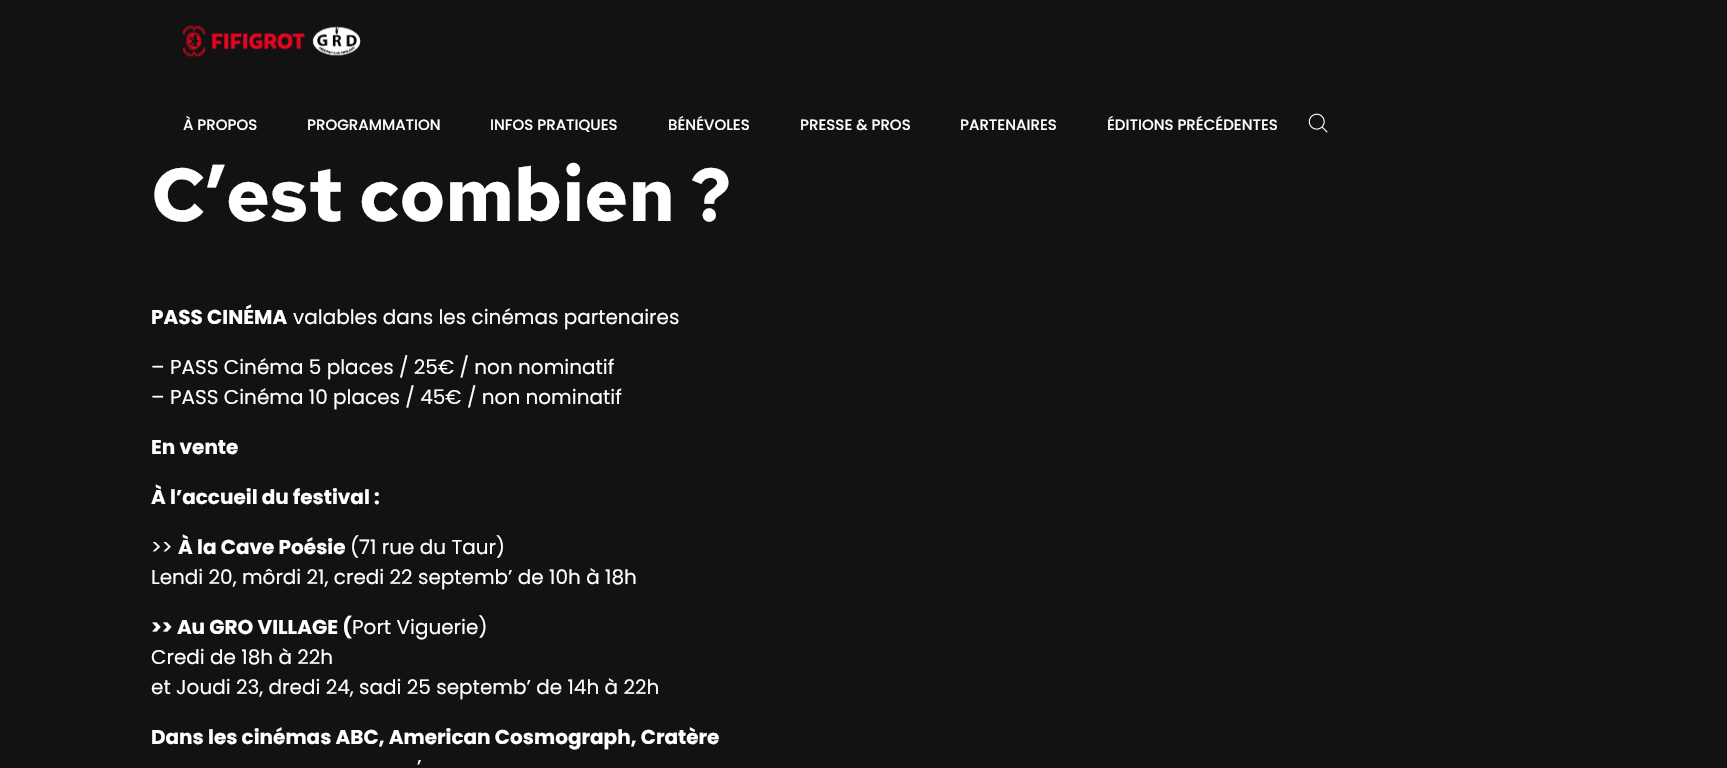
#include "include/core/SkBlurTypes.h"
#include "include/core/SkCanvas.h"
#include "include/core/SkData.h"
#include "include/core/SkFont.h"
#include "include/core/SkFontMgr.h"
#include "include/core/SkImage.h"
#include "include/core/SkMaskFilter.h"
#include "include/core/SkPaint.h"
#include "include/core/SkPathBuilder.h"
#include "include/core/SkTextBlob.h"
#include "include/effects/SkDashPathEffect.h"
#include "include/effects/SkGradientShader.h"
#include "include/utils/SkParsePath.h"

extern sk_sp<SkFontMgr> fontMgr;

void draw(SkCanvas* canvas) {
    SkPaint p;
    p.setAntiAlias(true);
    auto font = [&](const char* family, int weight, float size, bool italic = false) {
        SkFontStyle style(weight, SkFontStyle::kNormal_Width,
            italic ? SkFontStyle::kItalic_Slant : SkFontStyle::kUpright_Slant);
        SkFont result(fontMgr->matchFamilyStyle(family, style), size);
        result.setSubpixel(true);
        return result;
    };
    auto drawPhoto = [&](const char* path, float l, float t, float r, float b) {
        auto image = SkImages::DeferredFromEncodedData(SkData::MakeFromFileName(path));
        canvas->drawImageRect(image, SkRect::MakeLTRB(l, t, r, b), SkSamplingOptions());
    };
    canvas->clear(0xFF121212);
    drawPhoto("media/1.png", 182, 25, 361, 58);
    auto font1 = font("Poppins", 500, 15);
    p.setColor(0xFFFFFFFF);
    {
        const struct { const char* s; float x, y; } items[] = {
            {"À PROPOS", 183, 130},
            {"PROGRAMMATION", 307, 130},
            {"INFOS PRATIQUES", 490, 130},
            {"BÉNÉVOLES", 668, 130},
            {"PRESSE & PROS", 800, 130},
            {"PARTENAIRES", 960, 130},
            {"ÉDITIONS PRÉCÉDENTES", 1107, 130},
        };
        for (auto [s, x, y] : items) {
            canvas->drawString(s, x, y, font1, p);
        }
    }
    drawPhoto("media/2.png", 1308, 113, 1328, 133);
    auto font2 = font("Red Hat Text", 700, 75);
    canvas->drawString("C’est combien ?", 151, 221, font2, p);
    auto font3 = font("Poppins", 700, 20);
    canvas->drawString("PASS CINÉMA", 151, 324, font3, p);
    auto font4 = font("Poppins", 400, 20);
    {
        const struct { const char* s; float x, y; } items[] = {
            {"valables dans les cinémas partenaires", 293, 324},
            {"– PASS Cinéma 5 places / 25€ / non nominatif", 151, 374},
            {"– PASS Cinéma 10 places / 45€ / non nominatif", 151, 404},
        };
        for (auto [s, x, y] : items) {
            canvas->drawString(s, x, y, font4, p);
        }
    }
    canvas->drawString("En vente", 151, 454, font3, p);
    canvas->drawString("À l’accueil du festival :", 151, 504, font3, p);
    canvas->drawString(">>", 151, 554, font4, p);
    canvas->drawString("À la Cave Poésie", 178, 554, font3, p);
    canvas->drawString("(71 rue du Taur)", 350, 554, font4, p);
    canvas->drawString("Lendi 20, môrdi 21, credi 22 septemb’ de 10h à 18h", 151, 584, font4, p);
    canvas->drawString(">> Au GRO VILLAGE (", 151, 634, font3, p);
    {
        const struct { const char* s; float x, y; } items[] = {
            {"Port Viguerie)", 352, 634},
            {"Credi de 18h à 22h", 151, 664},
            {"et Joudi 23, dredi 24, sadi 25 septemb’ de 14h à 22h", 151, 694},
        };
        for (auto [s, x, y] : items) {
            canvas->drawString(s, x, y, font4, p);
        }
    }
    canvas->drawString("Dans les cinémas ABC, American Cosmograph, Cratère", 151, 744, font3, p);
    canvas->drawString("’", 417, 774, font4, p);
}
